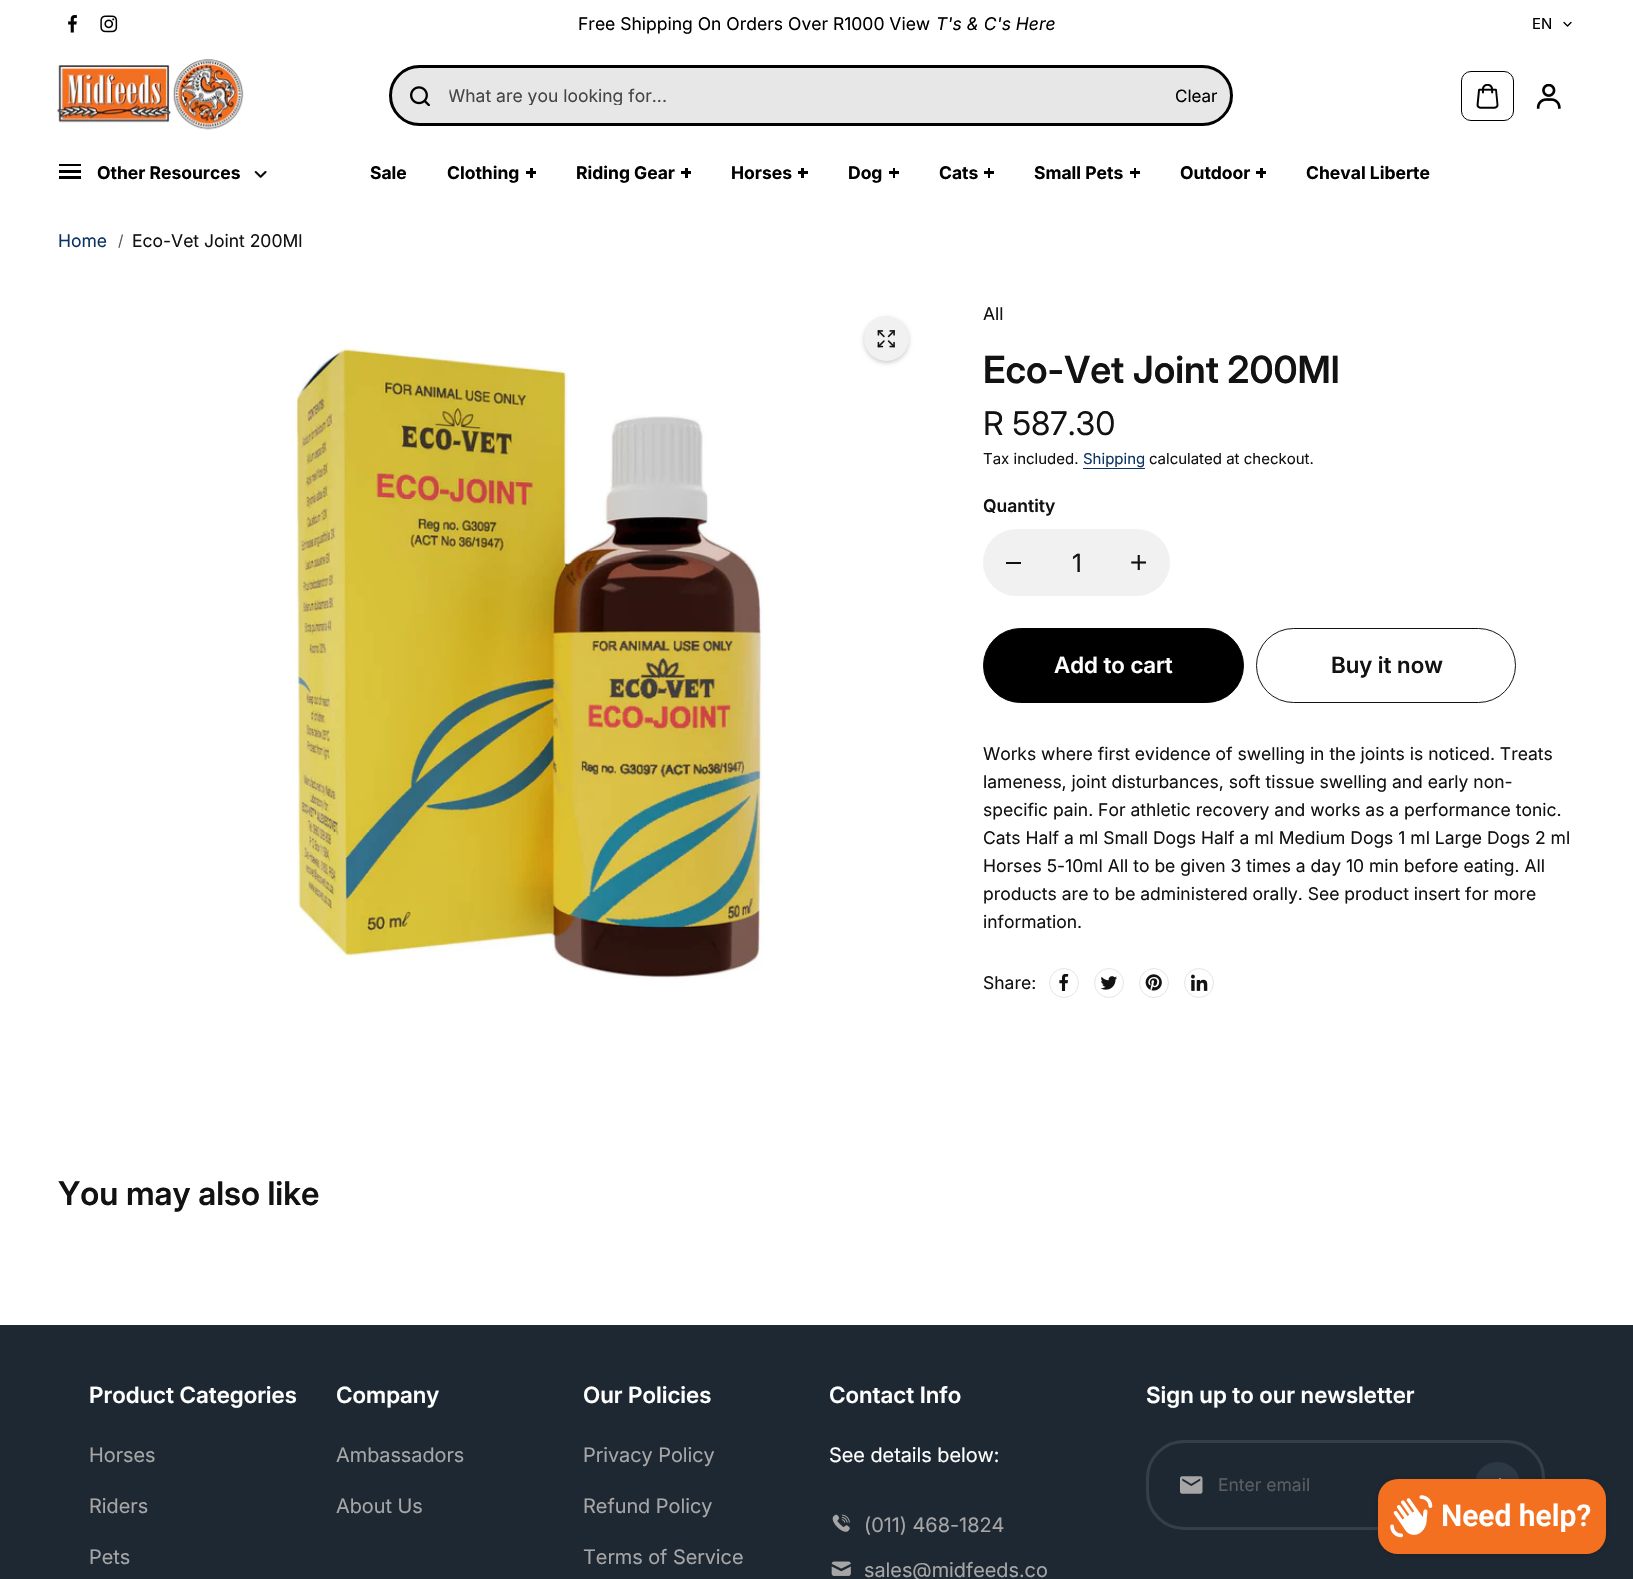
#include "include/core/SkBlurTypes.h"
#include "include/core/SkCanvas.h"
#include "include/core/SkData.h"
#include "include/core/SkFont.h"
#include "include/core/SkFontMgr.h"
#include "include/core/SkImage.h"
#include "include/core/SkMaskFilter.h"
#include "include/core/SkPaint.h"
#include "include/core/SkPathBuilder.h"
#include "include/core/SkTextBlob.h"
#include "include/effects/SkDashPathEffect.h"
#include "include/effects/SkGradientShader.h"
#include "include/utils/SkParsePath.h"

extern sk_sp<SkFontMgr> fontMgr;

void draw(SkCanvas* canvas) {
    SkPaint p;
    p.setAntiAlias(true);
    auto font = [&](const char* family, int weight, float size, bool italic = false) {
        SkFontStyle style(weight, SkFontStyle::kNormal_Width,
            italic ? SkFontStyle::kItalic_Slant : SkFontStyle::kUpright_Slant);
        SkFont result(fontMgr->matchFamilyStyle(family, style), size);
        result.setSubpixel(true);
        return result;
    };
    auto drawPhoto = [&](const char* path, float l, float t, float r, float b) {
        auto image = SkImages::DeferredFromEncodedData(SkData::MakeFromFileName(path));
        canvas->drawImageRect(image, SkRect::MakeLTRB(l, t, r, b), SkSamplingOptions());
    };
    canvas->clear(0xFFFFFFFF);
    drawPhoto("media/1.png", 68, 15, 77, 33);
    drawPhoto("media/2.png", 100, 15, 118, 33);
    auto font1 = font("Inter", 400, 17.5f);
    p.setColor(0xFF000000);
    canvas->drawString("Free Shipping On Orders Over R1000 View", 578, 30, font1, p);
    auto font2 = font("Inter", 400, 17.5f, true);
    canvas->drawString("T's & C's Here", 936, 30, font2, p);
    auto font3 = font("Inter", 400, 15);
    canvas->drawString("EN", 1532, 29, font3, p);
    p.setStyle(SkPaint::kStroke_Style);
    p.setStrokeWidth(1.4f);
    p.setStrokeCap(SkPaint::kRound_Cap);
    p.setStrokeJoin(SkPaint::kRound_Join);
    canvas->drawPath(SkPathBuilder().moveTo(1571, 22.5f).lineTo(1567.5f, 26).lineTo(1564, 22.5f).detach(), p);
    drawPhoto("media/3.png", 57, 59, 244, 130);
    p.setStyle(SkPaint::kFill_Style);
    p.setColor(0xFFE7E7E7);
    canvas->drawRoundRect(SkRect::MakeLTRB(390.5f, 66.5f, 1231.5f, 124.5f), 29, 29, p);
    p.setStyle(SkPaint::kStroke_Style);
    p.setStrokeWidth(3);
    p.setStrokeCap(SkPaint::kButt_Cap);
    p.setStrokeJoin(SkPaint::kMiter_Join);
    p.setColor(0xFF000000);
    canvas->drawRoundRect(SkRect::MakeLTRB(390.5f, 66.5f, 1231.5f, 124.5f), 29, 29, p);
    drawPhoto("media/4.png", 410, 86, 430, 106);
    canvas->save();
    canvas->clipPath(SkPathBuilder().moveTo(477, 68).lineTo(1128, 68).cubicTo(1143.5f, 68, 1156, 80.5f, 1156, 96).cubicTo(1156, 111.5f, 1143.5f, 124, 1128, 124).lineTo(477, 124).cubicTo(461.5f, 124, 449, 111.5f, 449, 96).cubicTo(449, 80.5f, 461.5f, 68, 477, 68).close().detach(), true);
    canvas->clipRect(SkRect::MakeLTRB(449, 84, 1156, 105));
    p.setStyle(SkPaint::kFill_Style);
    p.setColor(0xFF454545);
    canvas->drawString("What are you looking for...", 448, 102, font1, p);
    canvas->restore();
    auto font4 = font("Inter", 400, 17);
    p.setColor(0xFF000000);
    canvas->drawString("Clear", 1175, 102, font4, p);
    p.setStyle(SkPaint::kStroke_Style);
    p.setStrokeWidth(1);
    canvas->drawRoundRect(SkRect::MakeLTRB(1461.5f, 71.5f, 1513.5f, 120.5f), 9.5f, 9.5f, p);
    drawPhoto("media/5.png", 1476, 84, 1499, 109);
    drawPhoto("media/6.png", 1536, 84, 1561, 109);
    p.setStyle(SkPaint::kFill_Style);
    canvas->drawRect(SkRect::MakeLTRB(59, 164, 81, 166), p);
    canvas->drawRect(SkRect::MakeLTRB(59, 170, 81, 173), p);
    auto font5 = font("Inter", 700, 17.5f);
    canvas->drawString("Other Resources", 97, 179, font5, p);
    drawPhoto("media/7.png", 254, 171, 267, 178);
    canvas->drawRect(SkRect::MakeLTRB(59, 176, 81, 179), p);
    canvas->drawString("Sale", 370, 179, font5, p);
    canvas->drawString("Clothing", 447, 179, font5, p);
    canvas->drawRect(SkRect::MakeLTRB(526, 171, 536, 174), p);
    canvas->drawRect(SkRect::MakeLTRB(530, 168, 533, 178), p);
    canvas->drawString("Riding Gear", 576, 179, font5, p);
    canvas->drawRect(SkRect::MakeLTRB(681, 171, 691, 174), p);
    canvas->drawRect(SkRect::MakeLTRB(685, 168, 688, 178), p);
    canvas->drawString("Horses", 731, 179, font5, p);
    canvas->drawRect(SkRect::MakeLTRB(798, 171, 808, 174), p);
    canvas->drawRect(SkRect::MakeLTRB(801, 168, 804, 178), p);
    canvas->drawString("Dog", 848, 179, font5, p);
    canvas->drawRect(SkRect::MakeLTRB(889, 171, 899, 174), p);
    canvas->drawRect(SkRect::MakeLTRB(893, 168, 895, 178), p);
    canvas->drawString("Cats", 939, 179, font5, p);
    canvas->drawRect(SkRect::MakeLTRB(984, 171, 994, 174), p);
    canvas->drawRect(SkRect::MakeLTRB(988, 168, 990, 178), p);
    canvas->drawString("Small Pets", 1034, 179, font5, p);
    canvas->drawRect(SkRect::MakeLTRB(1130, 171, 1140, 174), p);
    canvas->drawRect(SkRect::MakeLTRB(1134, 168, 1136, 178), p);
    canvas->drawString("Outdoor", 1180, 179, font5, p);
    canvas->drawRect(SkRect::MakeLTRB(1256, 171, 1266, 174), p);
    canvas->drawRect(SkRect::MakeLTRB(1260, 168, 1263, 178), p);
    canvas->drawString("Cheval Liberte", 1306, 179, font5, p);
    p.setColor(0xFF0D3362);
    canvas->drawString("Home", 58, 247, font1, p);
    p.setColor(0xFF595959);
    canvas->drawString("/", 118, 246, font3, p);
    p.setColor(0xFF121212);
    canvas->drawString("Eco-Vet Joint 200Ml", 132, 247, font1, p);
    drawPhoto("media/8.png", 293, 344, 763, 979);
    p.setColor(0x30000000);
    p.setMaskFilter(SkMaskFilter::MakeBlur(kNormal_SkBlurStyle, 2));
    canvas->drawRoundRect(SkRect::MakeLTRB(864, 318, 909, 363), 22.5f, 22.5f, p);
    p.setMaskFilter(nullptr);
    p.setColor(0xFFF1F1F1);
    canvas->drawCircle(886.5f, 338.5f, 22.5f, p);
    drawPhoto("media/9.png", 877, 330, 895, 348);
    p.setColor(0xFF121212);
    canvas->drawString("All", 983, 320, font1, p);
    auto font6 = font("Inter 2", 600, 37.5f);
    canvas->drawString("Eco-Vet Joint 200Ml", 983, 383, font6, p);
    auto font7 = font("Inter 2", 400, 32.5f);
    canvas->drawString("R 587.30", 983, 435, font7, p);
    canvas->drawString("Tax included.", 983, 464, font3, p);
    p.setColor(0xFF0D3362);
    canvas->drawString("Shipping", 1083, 464, font3, p);
    canvas->drawRect(SkRect::MakeLTRB(1083, 468, 1145, 469), p);
    p.setColor(0xFF121212);
    canvas->drawString("calculated at checkout.", 1149, 464, font3, p);
    auto font8 = font("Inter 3", 600, 17.5f);
    canvas->drawString("Quantity", 983, 512, font8, p);
    p.setColor(0xFFF1F1F1);
    canvas->drawRoundRect(SkRect::MakeLTRB(983, 529, 1170, 596), 33.5f, 33.5f, p);
    p.setColor(0xFF121212);
    canvas->drawRect(SkRect::MakeLTRB(1006, 562, 1021, 564), p);
    auto font9 = font("Inter 3", 400, 25);
    canvas->drawString("1", 1072, 572, font9, p);
    drawPhoto("media/10.png", 1131, 555, 1146, 570);
    p.setColor(0xFF000000);
    canvas->drawRoundRect(SkRect::MakeLTRB(983.5f, 628.5f, 1243.5f, 702.5f), 37, 37, p);
    p.setStyle(SkPaint::kStroke_Style);
    canvas->drawRoundRect(SkRect::MakeLTRB(983.5f, 628.5f, 1243.5f, 702.5f), 37, 37, p);
    auto font10 = font("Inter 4", 600, 22.5f);
    p.setStyle(SkPaint::kFill_Style);
    p.setColor(0xFFFFFFFF);
    canvas->drawString("Add to cart", 1054, 673, font10, p);
    p.setStyle(SkPaint::kStroke_Style);
    p.setColor(0xFF121212);
    canvas->drawRoundRect(SkRect::MakeLTRB(1256.5f, 628.5f, 1515.5f, 702.5f), 37, 37, p);
    p.setStyle(SkPaint::kFill_Style);
    canvas->drawString("Buy it now", 1331, 673, font10, p);
    {
        const struct { const char* s; float x, y; } items[] = {
            {"Works where first evidence of swelling in the joints is noticed. Treats", 983, 760},
            {"lameness, joint disturbances, soft tissue swelling and early non-", 983, 788},
            {"specific pain. For athletic recovery and works as a performance tonic.", 983, 816},
            {"Cats Half a ml Small Dogs Half a ml Medium Dogs 1 ml Large Dogs 2 ml", 983, 844},
            {"Horses 5-10ml All to be given 3 times a day 10 min before eating. All", 983, 872},
            {"products are to be administered orally. See product insert for more", 983, 900},
            {"information.", 983, 928},
            {"Share:", 983, 989},
        };
        for (auto [s, x, y] : items) {
            canvas->drawString(s, x, y, font1, p);
        }
    }
    p.setStyle(SkPaint::kStroke_Style);
    p.setColor(0xFFE5E5E5);
    canvas->drawCircle(1064, 983, 14.5f, p);
    drawPhoto("media/11.png", 1059, 974, 1069, 991);
    canvas->drawCircle(1109, 983, 14.5f, p);
    drawPhoto("media/12.png", 1100, 976, 1117, 990);
    canvas->drawCircle(1154, 983, 14.5f, p);
    drawPhoto("media/13.png", 1145, 974, 1162, 991);
    canvas->drawCircle(1199, 983, 14.5f, p);
    drawPhoto("media/14.png", 1191, 974, 1208, 991);
    auto font11 = font("Inter", 600, 32.5f);
    p.setStyle(SkPaint::kFill_Style);
    p.setColor(0xFF121212);
    canvas->drawString("You may also like", 58, 1205, font11, p);
    p.setColor(0xFF1E2832);
    canvas->drawRect(SkRect::MakeLTRB(0, 1325, 1633, 1579), p);
    p.setColor(0xFFFFFFFF);
    canvas->drawString("Product Categories", 89, 1403, font10, p);
    auto font12 = font("Inter 4", 400, 20);
    p.setColor(0xFFA6A6A6);
    {
        const struct { const char* s; float x, y; } items[] = {
            {"Horses", 89, 1462},
            {"Riders", 89, 1513},
            {"Pets", 89, 1564},
        };
        for (auto [s, x, y] : items) {
            canvas->drawString(s, x, y, font12, p);
        }
    }
    p.setColor(0xFFFFFFFF);
    canvas->drawString("Company", 336, 1403, font10, p);
    p.setColor(0xFFA6A6A6);
    canvas->drawString("Ambassadors", 336, 1462, font12, p);
    canvas->drawString("About Us", 336, 1513, font12, p);
    p.setColor(0xFFFFFFFF);
    canvas->drawString("Our Policies", 583, 1403, font10, p);
    p.setColor(0xFFA6A6A6);
    {
        const struct { const char* s; float x, y; } items[] = {
            {"Privacy Policy", 583, 1462},
            {"Refund Policy", 583, 1513},
            {"Terms of Service", 583, 1564},
        };
        for (auto [s, x, y] : items) {
            canvas->drawString(s, x, y, font12, p);
        }
    }
    p.setColor(0xFFFFFFFF);
    canvas->drawString("Contact Info", 829, 1403, font10, p);
    canvas->drawString("See details below:", 829, 1462, font12, p);
    drawPhoto("media/15.png", 832, 1514, 850, 1532);
    p.setColor(0xFFA6A6A6);
    canvas->drawString("(011) 468-1824", 864, 1532, font12, p);
    drawPhoto("media/16.png", 831, 1561, 851, 1576);
    canvas->drawString("sales@midfeeds.co", 864, 1577, font12, p);
    p.setColor(0xFFFFFFFF);
    canvas->drawString("Sign up to our newsletter", 1146, 1403, font10, p);
    p.setStyle(SkPaint::kStroke_Style);
    p.setStrokeWidth(3);
    p.setColor(0xFF353F48);
    canvas->drawRoundRect(SkRect::MakeLTRB(1147.5f, 1441.5f, 1543.5f, 1528.5f), 36.5f, 36.5f, p);
    drawPhoto("media/17.png", 1180, 1476, 1203, 1494);
    p.setStyle(SkPaint::kFill_Style);
    p.setColor(0xFF5B5E61);
    canvas->drawString("Enter email", 1218, 1491, font1, p);
    p.setColor(0xFF2C3844);
    canvas->drawRoundRect(SkRect::MakeLTRB(1474.5f, 1461.5f, 1520.5f, 1508.5f), 23, 23, p);
    p.setStyle(SkPaint::kStroke_Style);
    p.setStrokeWidth(1);
    p.setColor(0xFF1E2832);
    canvas->drawRoundRect(SkRect::MakeLTRB(1474.5f, 1461.5f, 1520.5f, 1508.5f), 23, 23, p);
    drawPhoto("media/18.png", 1499, 1478, 1501, 1479);
    p.setStyle(SkPaint::kFill_Style);
    p.setColor(0x26000000);
    p.setMaskFilter(SkMaskFilter::MakeBlur(kNormal_SkBlurStyle, 3));
    canvas->drawRoundRect(SkRect::MakeLTRB(1378, 1479, 1606, 1554), 20, 20, p);
    p.setMaskFilter(nullptr);
    p.setColor(0xFFF37021);
    canvas->drawRoundRect(SkRect::MakeLTRB(1378, 1479, 1606, 1554), 20, 20, p);
    drawPhoto("media/19.png", 1390, 1495, 1433, 1538);
    auto font13 = font("Roboto", 600, 30);
    p.setColor(0xFFFFFFFF);
    canvas->drawString("Need help?", 1441, 1526, font13, p);
}
